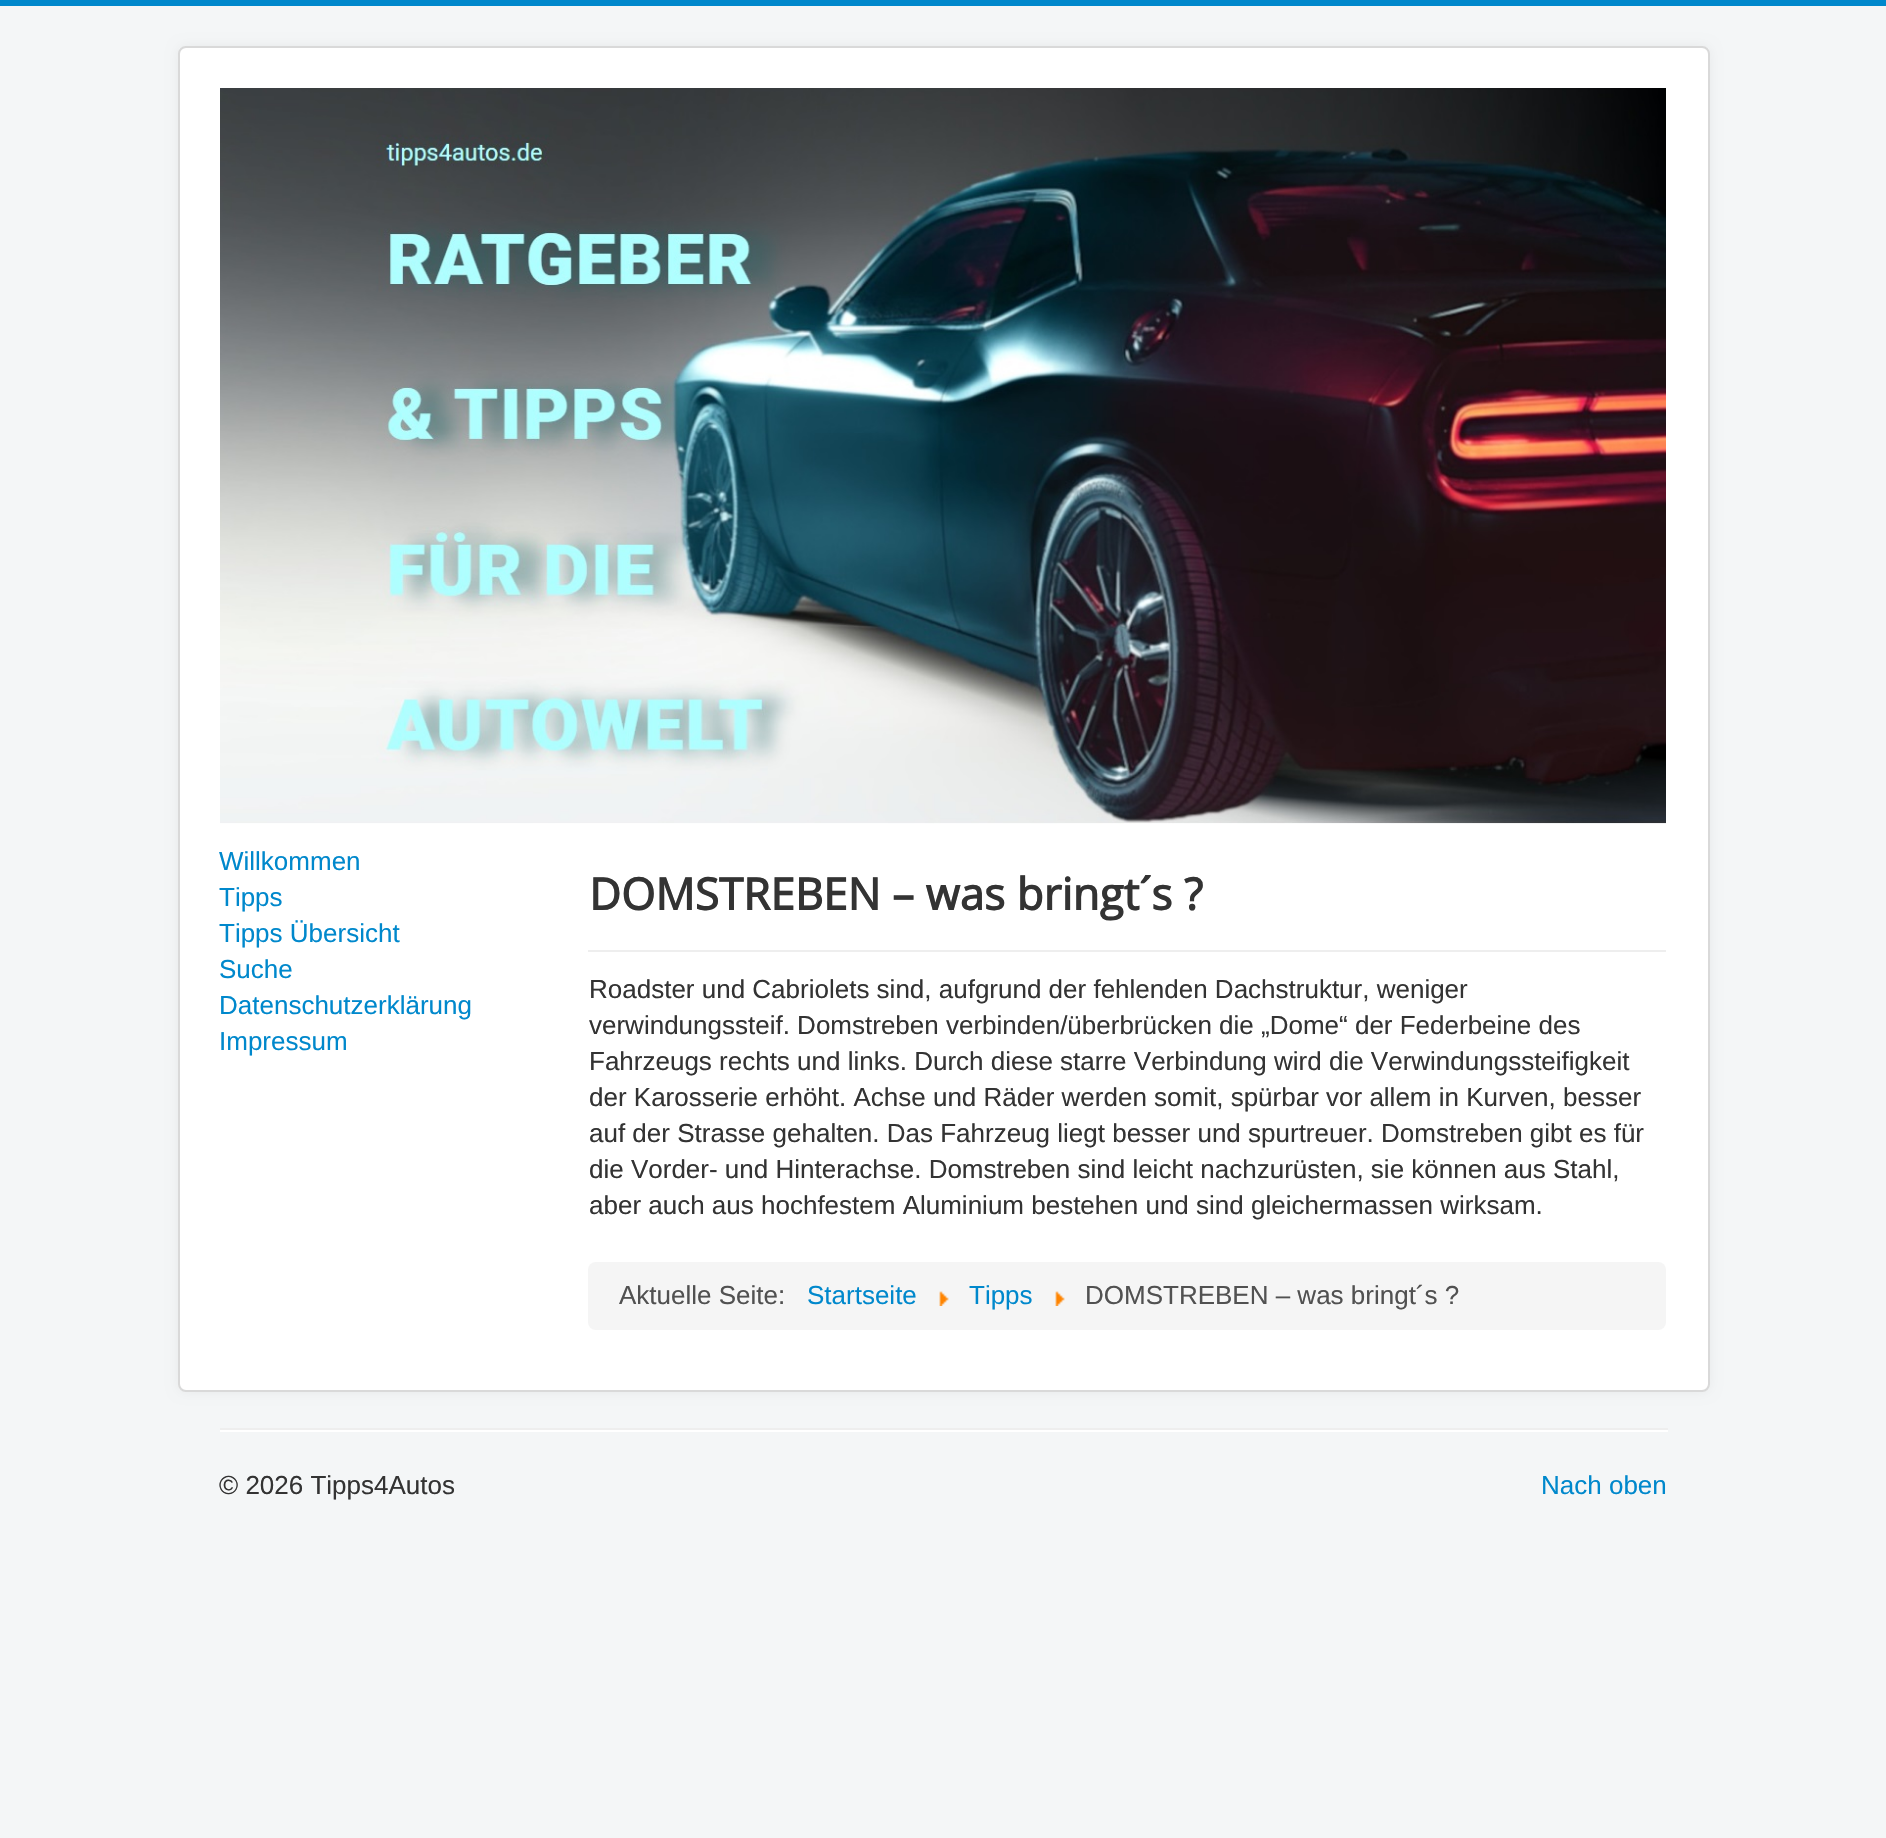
#include "include/core/SkBlurTypes.h"
#include "include/core/SkCanvas.h"
#include "include/core/SkData.h"
#include "include/core/SkFont.h"
#include "include/core/SkFontMgr.h"
#include "include/core/SkImage.h"
#include "include/core/SkMaskFilter.h"
#include "include/core/SkPaint.h"
#include "include/core/SkPathBuilder.h"
#include "include/core/SkTextBlob.h"
#include "include/effects/SkDashPathEffect.h"
#include "include/effects/SkGradientShader.h"
#include "include/utils/SkParsePath.h"

extern sk_sp<SkFontMgr> fontMgr;

void draw(SkCanvas* canvas) {
    SkPaint p;
    p.setAntiAlias(true);
    auto font = [&](const char* family, int weight, float size, bool italic = false) {
        SkFontStyle style(weight, SkFontStyle::kNormal_Width,
            italic ? SkFontStyle::kItalic_Slant : SkFontStyle::kUpright_Slant);
        SkFont result(fontMgr->matchFamilyStyle(family, style), size);
        result.setSubpixel(true);
        return result;
    };
    auto drawPhoto = [&](const char* path, float l, float t, float r, float b) {
        auto image = SkImages::DeferredFromEncodedData(SkData::MakeFromFileName(path));
        canvas->drawImageRect(image, SkRect::MakeLTRB(l, t, r, b), SkSamplingOptions());
    };
    canvas->clear(0xFFF4F6F7);
    p.setColor(0xFF0088CC);
    canvas->drawRect(SkRect::MakeLTRB(0, 0, 1886, 6), p);
    p.setColor(0x0D000000);
    p.setMaskFilter(SkMaskFilter::MakeBlur(kNormal_SkBlurStyle, 6));
    canvas->drawRoundRect(SkRect::MakeLTRB(178, 46, 1710, 1392), 8, 8, p);
    p.setMaskFilter(nullptr);
    p.setColor(0xFFFFFFFF);
    canvas->drawRoundRect(SkRect::MakeLTRB(178, 46, 1710, 1392), 8, 8, p);
    p.setStyle(SkPaint::kStroke_Style);
    p.setStrokeWidth(2);
    p.setColor(0x26000000);
    canvas->drawRoundRect(SkRect::MakeLTRB(179, 47, 1709, 1391), 7, 7, p);
    drawPhoto("media/1.png", 220, 88, 1666, 824);
    auto font1 = font("Liberation Sans", 400, 26);
    p.setStyle(SkPaint::kFill_Style);
    p.setColor(0xFF0088CC);
    {
        const struct { const char* s; float x, y; } items[] = {
            {"Willkommen", 219, 870},
            {"Tipps", 219, 906},
            {"Tipps Übersicht", 219, 942},
            {"Suche", 219, 978},
            {"Datenschutzerklärung", 219, 1014},
            {"Impressum", 219, 1050},
        };
        for (auto [s, x, y] : items) {
            canvas->drawString(s, x, y, font1, p);
        }
    }
    p.setColor(0xFFEEEEEE);
    canvas->drawRect(SkRect::MakeLTRB(588, 950, 1666, 952), p);
    auto font2 = font("Open Sans", 700, 44);
    p.setColor(0xFF333333);
    canvas->drawString("DOMSTREBEN – was bringt´s ?", 589, 910, font2, p);
    {
        const struct { const char* s; float x, y; } items[] = {
            {"Roadster und Cabriolets sind, aufgrund der fehlenden Dachstruktur, weniger", 589, 998},
            {"verwindungssteif. Domstreben verbinden/überbrücken die „Dome“ der Federbeine des", 589, 1034},
            {"Fahrzeugs rechts und links. Durch diese starre Verbindung wird die Verwindungssteifigkeit", 589, 1070},
            {"der Karosserie erhöht. Achse und Räder werden somit, spürbar vor allem in Kurven, besser", 589, 1106},
            {"auf der Strasse gehalten. Das Fahrzeug liegt besser und spurtreuer. Domstreben gibt es für", 589, 1142},
            {"die Vorder- und Hinterachse. Domstreben sind leicht nachzurüsten, sie können aus Stahl,", 589, 1178},
            {"aber auch aus hochfestem Aluminium bestehen und sind gleichermassen wirksam.", 589, 1214},
        };
        for (auto [s, x, y] : items) {
            canvas->drawString(s, x, y, font1, p);
        }
    }
    p.setColor(0xFFF5F5F5);
    canvas->drawRoundRect(SkRect::MakeLTRB(588, 1262, 1666, 1330), 8, 8, p);
    p.setColor(0xFF515151);
    canvas->drawString("Aktuelle Seite:", 619, 1304, font1, p);
    p.setColor(0xFF0088CC);
    canvas->drawString("Startseite", 807, 1304, font1, p);
    drawPhoto("media/2.png", 939, 1291, 949, 1306);
    canvas->drawString("Tipps", 969, 1304, font1, p);
    drawPhoto("media/2.png", 1055, 1291, 1065, 1306);
    p.setColor(0xFF515151);
    canvas->drawString("DOMSTREBEN – was bringt´s ?", 1085, 1304, font1, p);
    p.setColor(0xFFEEEEEE);
    canvas->drawRect(SkRect::MakeLTRB(220, 1428, 1668, 1430), p);
    p.setColor(0xFFFFFFFF);
    canvas->drawRect(SkRect::MakeLTRB(220, 1430, 1668, 1432), p);
    p.setColor(0xFF333333);
    canvas->drawString("© 2026 Tipps4Autos", 219, 1494, font1, p);
    p.setColor(0xFF0088CC);
    canvas->drawString("Nach oben", 1541, 1494, font1, p);
}
